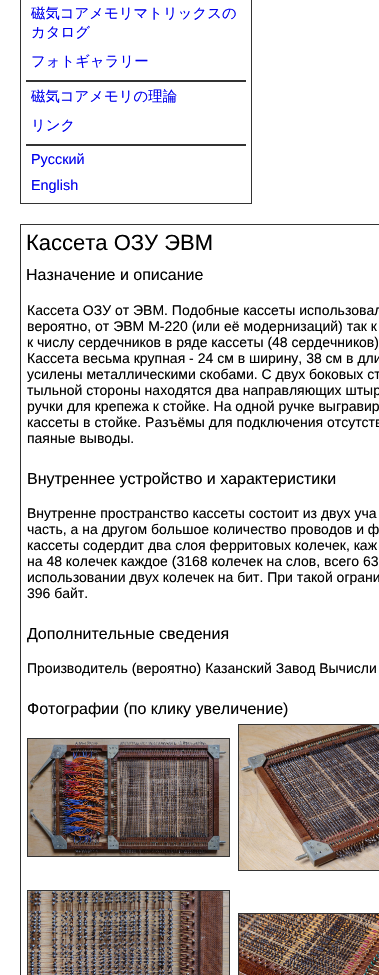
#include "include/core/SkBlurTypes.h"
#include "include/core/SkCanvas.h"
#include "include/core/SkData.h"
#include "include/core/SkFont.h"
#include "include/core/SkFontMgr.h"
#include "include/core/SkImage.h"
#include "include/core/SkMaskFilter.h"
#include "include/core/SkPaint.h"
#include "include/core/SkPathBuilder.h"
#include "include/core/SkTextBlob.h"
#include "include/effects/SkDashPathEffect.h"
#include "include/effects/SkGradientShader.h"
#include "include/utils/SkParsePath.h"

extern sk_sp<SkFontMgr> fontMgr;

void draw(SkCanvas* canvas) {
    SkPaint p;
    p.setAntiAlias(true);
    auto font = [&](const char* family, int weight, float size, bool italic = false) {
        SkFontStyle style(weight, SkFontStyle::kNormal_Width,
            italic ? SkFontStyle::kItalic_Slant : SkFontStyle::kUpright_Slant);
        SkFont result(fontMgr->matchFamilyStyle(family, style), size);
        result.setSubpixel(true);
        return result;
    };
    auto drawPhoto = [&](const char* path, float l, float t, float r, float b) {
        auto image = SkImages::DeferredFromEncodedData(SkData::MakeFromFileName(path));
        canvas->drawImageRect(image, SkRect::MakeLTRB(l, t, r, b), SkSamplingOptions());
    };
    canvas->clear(0xFFFFFFFF);
    p.setStyle(SkPaint::kStroke_Style);
    p.setStrokeWidth(1);
    p.setColor(0xFF333333);
    canvas->drawRect(SkRect::MakeLTRB(20.5f, -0.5f, 251.5f, 203.5f), p);
    auto font1 = font("WenQuanYi Zen Hei", 500, 14.4f);
    p.setStyle(SkPaint::kFill_Style);
    p.setColor(0xFF0000EE);
    {
        const struct { const char* s; float x, y; } items[] = {
            {"磁気コアメモリマトリックスの", 31, 18},
            {"カタログ", 31, 37},
            {"フォトギャラリー", 31, 66},
        };
        for (auto [s, x, y] : items) {
            canvas->drawString(s, x, y, font1, p);
        }
    }
    p.setColor(0xFF333333);
    canvas->drawRect(SkRect::MakeLTRB(26, 80, 246, 82), p);
    p.setColor(0xFF0000EE);
    canvas->drawString("磁気コアメモリの理論", 31, 101, font1, p);
    canvas->drawString("リンク", 31, 130, font1, p);
    p.setColor(0xFF333333);
    canvas->drawRect(SkRect::MakeLTRB(26, 144, 246, 146), p);
    auto font2 = font("Liberation Sans", 400, 14.4f);
    p.setColor(0xFF0000EE);
    canvas->drawString("Русский", 31, 164, font2, p);
    canvas->drawString("English", 31, 190, font2, p);
    p.setStyle(SkPaint::kStroke_Style);
    p.setColor(0xFF333333);
    canvas->drawRect(SkRect::MakeLTRB(20.5f, 224.5f, 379.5f, 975.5f), p);
    auto font3 = font("Liberation Sans", 400, 22);
    p.setStyle(SkPaint::kFill_Style);
    p.setColor(0xFF000000);
    canvas->drawString("Кассета ОЗУ ЭВМ", 26, 250, font3, p);
    auto font4 = font("Liberation Sans", 400, 16);
    canvas->drawString("Назначение и описание", 26, 280, font4, p);
    auto font5 = font("Liberation Sans", 400, 14);
    {
        const struct { const char* s; float x, y; } items[] = {
            {"Кассета ОЗУ от ЭВМ. Подобные кассеты использовал", 27, 315},
            {"вероятно, от ЭВМ М-220 (или её модернизаций) так к", 27, 331},
            {"к числу сердечников в ряде кассеты (48 сердечников)", 27, 347},
            {"Кассета весьма крупная - 24 см в ширину, 38 см в дли", 27, 363},
            {"усилены металлическими скобами. С двух боковых ст", 27, 379},
            {"тыльной стороны находятся два направляющих штыр", 27, 395},
            {"ручки для крепежа к стойке. На одной ручке выгравир", 27, 411},
            {"кассеты в стойке. Разъёмы для подключения отсутств", 27, 427},
            {"паяные выводы.", 27, 443},
        };
        for (auto [s, x, y] : items) {
            canvas->drawString(s, x, y, font5, p);
        }
    }
    canvas->drawString("Внутреннее устройство и характеристики", 27, 484, font4, p);
    {
        const struct { const char* s; float x, y; } items[] = {
            {"Внутренне пространство кассеты состоит из двух уча", 27, 518},
            {"часть, а на другом большое количество проводов и ф", 27, 534},
            {"кассеты содердит два слоя ферритовых колечек, каж", 27, 550},
            {"на 48 колечек каждое (3168 колечек на слов, всего 63", 27, 566},
            {"использовании двух колечек на бит. При такой ограни", 27, 582},
            {"396 байт.", 27, 598},
        };
        for (auto [s, x, y] : items) {
            canvas->drawString(s, x, y, font5, p);
        }
    }
    canvas->drawString("Дополнительные сведения", 27, 639, font4, p);
    canvas->drawString("Производитель (вероятно) Казанский Завод Вычисли", 27, 673, font5, p);
    canvas->drawString("Фотографии (по клику увеличение)", 27, 714, font4, p);
    p.setStyle(SkPaint::kStroke_Style);
    p.setColor(0xFF333333);
    canvas->drawRect(SkRect::MakeLTRB(238.5f, 724.5f, 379.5f, 870.5f), p);
    canvas->drawRect(SkRect::MakeLTRB(27.5f, 738.5f, 229.5f, 856.5f), p);
    drawPhoto("media/1.png", 239, 725, 379, 870);
    drawPhoto("media/2.png", 28, 739, 229, 856);
    canvas->drawRect(SkRect::MakeLTRB(27.5f, 890.5f, 229.5f, 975.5f), p);
    drawPhoto("media/3.png", 28, 891, 229, 975);
    canvas->drawRect(SkRect::MakeLTRB(238.5f, 913.5f, 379.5f, 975.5f), p);
    drawPhoto("media/4.png", 239, 914, 379, 975);
}
